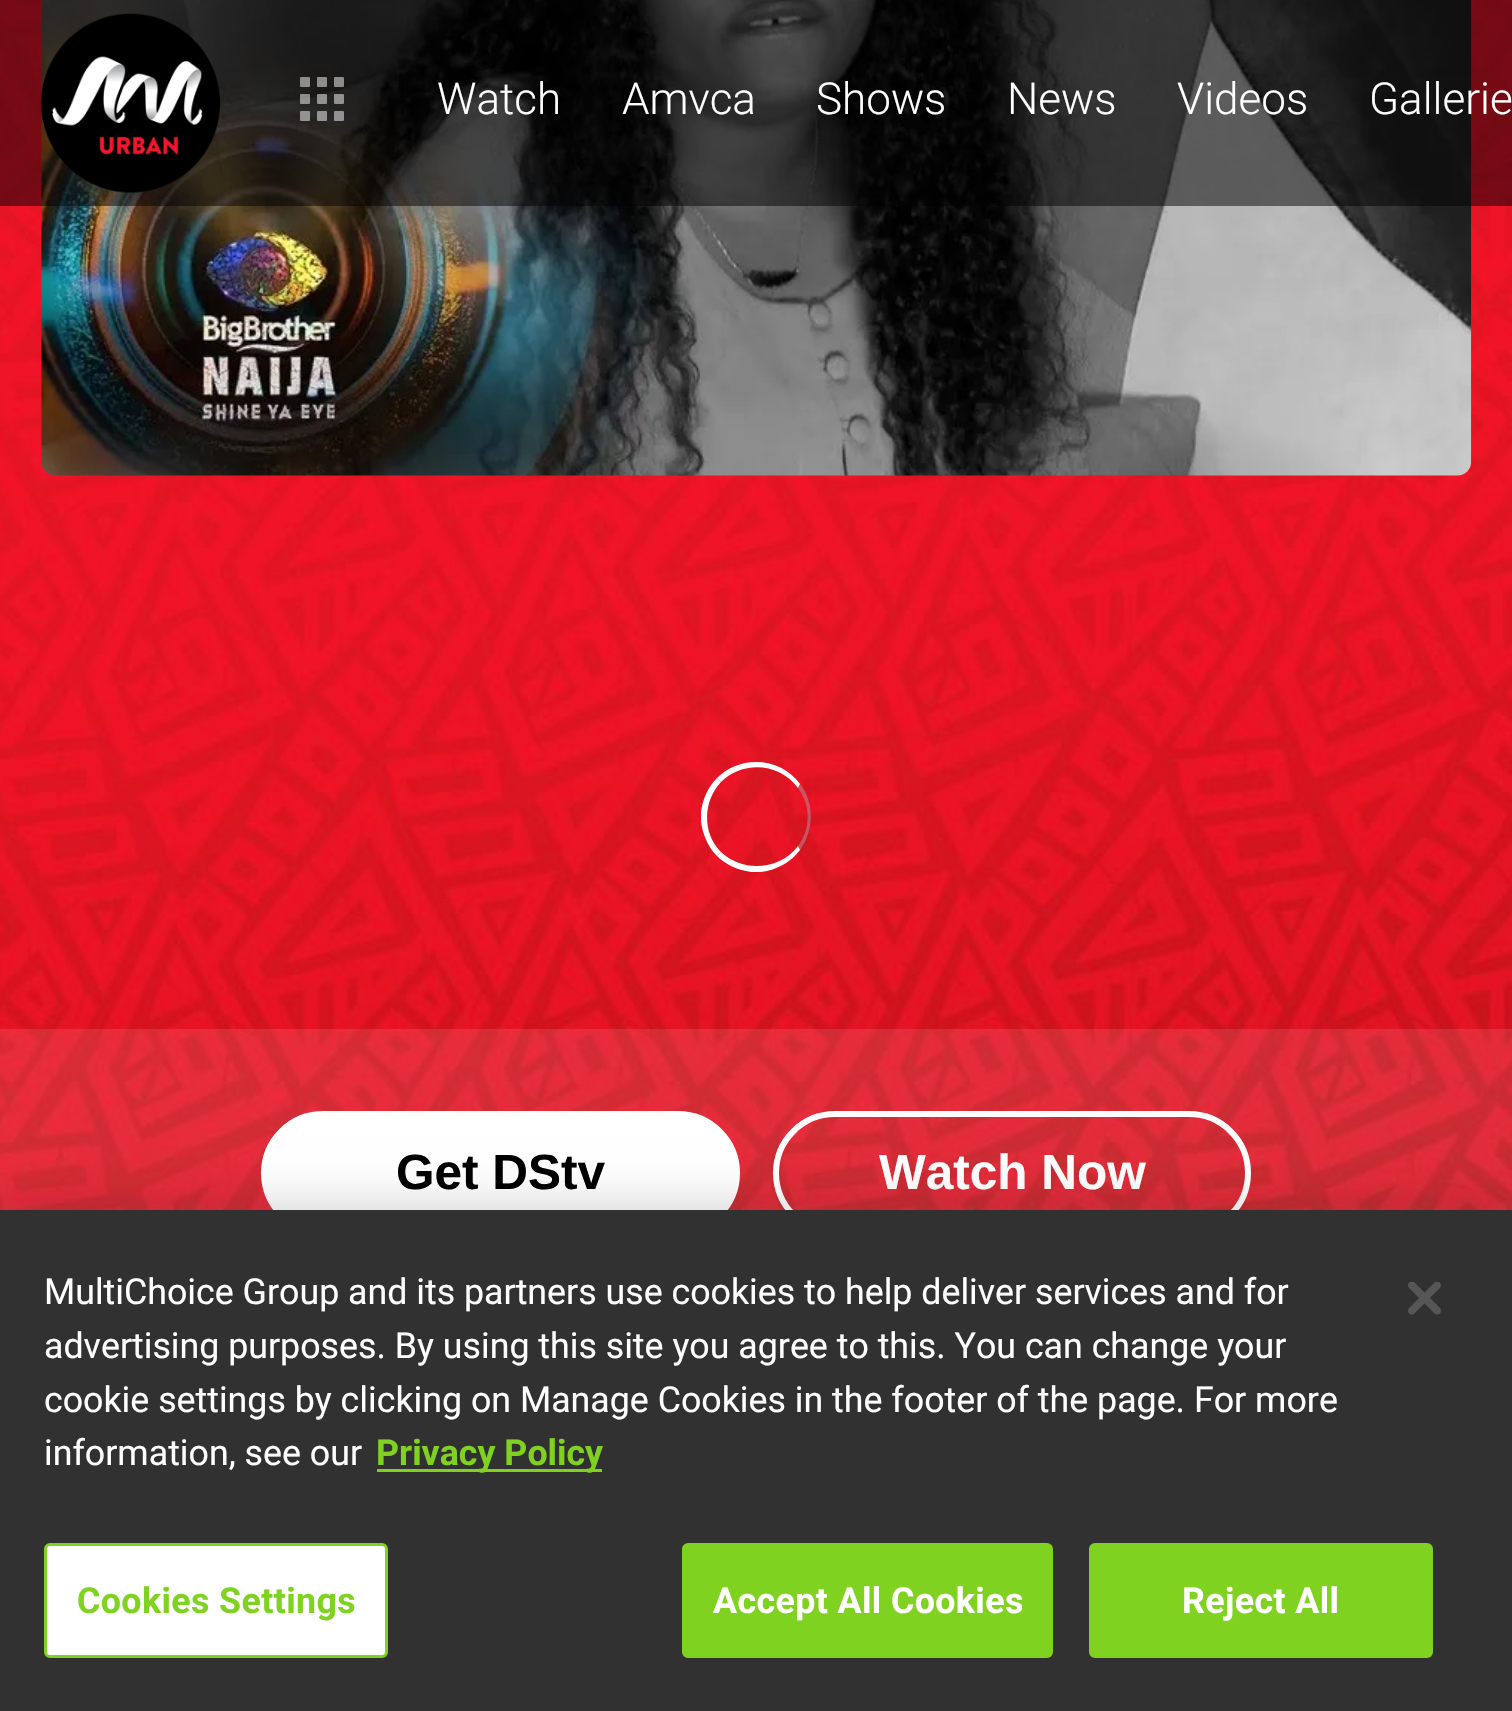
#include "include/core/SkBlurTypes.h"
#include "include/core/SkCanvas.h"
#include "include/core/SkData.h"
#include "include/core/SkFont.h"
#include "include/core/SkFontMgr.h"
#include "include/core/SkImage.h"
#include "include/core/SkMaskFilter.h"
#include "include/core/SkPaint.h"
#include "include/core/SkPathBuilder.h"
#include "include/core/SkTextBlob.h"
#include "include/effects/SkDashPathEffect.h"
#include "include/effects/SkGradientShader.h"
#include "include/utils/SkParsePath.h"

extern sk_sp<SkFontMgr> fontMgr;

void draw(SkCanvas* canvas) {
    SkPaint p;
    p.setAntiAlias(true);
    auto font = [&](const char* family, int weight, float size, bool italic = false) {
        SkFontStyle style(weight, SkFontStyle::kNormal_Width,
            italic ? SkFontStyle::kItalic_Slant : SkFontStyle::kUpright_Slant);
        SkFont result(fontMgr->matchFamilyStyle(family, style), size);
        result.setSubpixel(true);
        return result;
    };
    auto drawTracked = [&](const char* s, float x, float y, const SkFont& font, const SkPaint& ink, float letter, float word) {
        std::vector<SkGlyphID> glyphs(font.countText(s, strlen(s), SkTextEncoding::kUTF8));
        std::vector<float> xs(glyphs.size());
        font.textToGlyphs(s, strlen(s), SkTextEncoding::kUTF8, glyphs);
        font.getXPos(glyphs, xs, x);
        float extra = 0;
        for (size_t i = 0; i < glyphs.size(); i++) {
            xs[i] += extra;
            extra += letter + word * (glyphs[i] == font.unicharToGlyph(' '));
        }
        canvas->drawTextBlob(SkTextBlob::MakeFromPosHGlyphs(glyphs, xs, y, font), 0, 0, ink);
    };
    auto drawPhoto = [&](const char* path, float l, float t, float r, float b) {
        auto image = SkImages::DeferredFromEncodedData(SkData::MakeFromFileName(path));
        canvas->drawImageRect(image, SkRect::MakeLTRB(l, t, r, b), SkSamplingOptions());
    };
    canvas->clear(0xFFFFFFFF);
    drawPhoto("media/1.png", 0, 0, 1512, 1210);
    drawPhoto("media/2.png", 41, 0, 1472, 476);
    p.setColor(0xFFFFFFFF);
    canvas->drawPath(SkPathBuilder().moveTo(756, 762).cubicTo(741, 762, 727, 768, 717, 778).lineTo(721, 782).cubicTo(743, 760, 780, 763, 798, 788).lineTo(800, 784).cubicTo(790, 770, 774, 762, 756, 762).close().detach(), p);
    p.setColor(0x66A2B6BF);
    canvas->drawPath(SkPathBuilder().moveTo(800, 850).cubicTo(814, 831, 815, 803, 800, 784).lineTo(798, 788).cubicTo(811, 805, 811, 829, 798, 846).close().detach(), p);
    p.setColor(0xFFFFFFFF);
    canvas->drawPath(SkPathBuilder().moveTo(751, 872).cubicTo(738, 870, 726, 865, 717, 856).lineTo(721, 852).cubicTo(743, 873, 780, 870, 798, 846).lineTo(800, 850).cubicTo(791, 862, 777, 870, 761, 872).close().detach(), p);
    canvas->drawPath(SkPathBuilder().moveTo(701, 812).cubicTo(703, 798, 708, 787, 717, 778).lineTo(721, 782).cubicTo(703, 801, 702, 833, 721, 852).lineTo(717, 856).cubicTo(708, 847, 703, 835, 701, 822).close().detach(), p);
    p.setColor(0x80000000);
    canvas->drawRect(SkRect::MakeLTRB(0, 0, 1512, 206), p);
    drawPhoto("media/3.png", 41, 13, 220, 193);
    p.setColor(0xFF8D8D8C);
    canvas->drawRoundRect(SkRect::MakeLTRB(300, 77, 310, 87), 1, 1, p);
    p.setColor(0xFF8D8C8B);
    canvas->drawRoundRect(SkRect::MakeLTRB(317, 77, 327, 87), 1, 1, p);
    p.setColor(0x80FFFFFF);
    canvas->drawRoundRect(SkRect::MakeLTRB(334, 77, 344, 87), 1, 1, p);
    canvas->drawRoundRect(SkRect::MakeLTRB(300, 94, 310, 104), 1, 1, p);
    canvas->drawRoundRect(SkRect::MakeLTRB(317, 94, 327, 104), 1, 1, p);
    p.setColor(0xFF919190);
    canvas->drawRoundRect(SkRect::MakeLTRB(334, 94, 344, 104), 1, 1, p);
    p.setColor(0x80FFFFFF);
    canvas->drawRoundRect(SkRect::MakeLTRB(300, 111, 310, 121), 1, 1, p);
    canvas->drawRoundRect(SkRect::MakeLTRB(317, 111, 327, 121), 1, 1, p);
    canvas->drawRoundRect(SkRect::MakeLTRB(334, 111, 344, 121), 1, 1, p);
    auto font1 = font("Roboto", 300, 44);
    p.setColor(0xFFFFFFFF);
    {
        const struct { const char* s; float x, y; } items[] = {
            {"Watch", 437, 114},
            {"Amvca", 622, 114},
            {"Shows", 816, 114},
            {"News", 1007, 114},
            {"Videos", 1177, 114},
            {"Gallerie", 1369, 114},
        };
        for (auto [s, x, y] : items) {
            canvas->drawString(s, x, y, font1, p);
        }
    }
    p.setColor(0x1AFFFFFF);
    canvas->drawRect(SkRect::MakeLTRB(0, 1029, 1512, 1210), p);
    p.setColor(0xFFFFFFFF);
    canvas->drawRoundRect(SkRect::MakeLTRB(264, 1114, 737, 1232), 59, 59, p);
    p.setStyle(SkPaint::kStroke_Style);
    p.setStrokeWidth(6);
    canvas->drawRoundRect(SkRect::MakeLTRB(264, 1114, 737, 1232), 59, 59, p);
    auto font2 = font("Liberation Sans", 700, 49.5f);
    p.setStyle(SkPaint::kFill_Style);
    p.setColor(0xFF000000);
    canvas->drawString("Get DStv", 396, 1189, font2, p);
    p.setStyle(SkPaint::kStroke_Style);
    p.setColor(0xFFFFFFFF);
    canvas->drawRoundRect(SkRect::MakeLTRB(776, 1114, 1248, 1232), 59, 59, p);
    p.setStyle(SkPaint::kFill_Style);
    canvas->drawString("Watch Now", 879, 1189, font2, p);
    p.setColor(0x33000000);
    p.setMaskFilter(SkMaskFilter::MakeBlur(kNormal_SkBlurStyle, 25));
    canvas->drawRect(SkRect::MakeLTRB(0, 1210, 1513, 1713), p);
    p.setMaskFilter(nullptr);
    p.setColor(0xFF323132);
    canvas->drawRect(SkRect::MakeLTRB(0, 1210, 1512, 1711), p);
    auto font3 = font("Roboto", 400, 35.75f);
    p.setColor(0xFFFFFFFF);
    {
        const struct { const char* s; float x, y; } items[] = {
            {"MultiChoice Group and its partners use cookies to help deliver services and for", 44, 1304},
            {"advertising purposes. By using this site you agree to this. You can change your", 44, 1358},
            {"cookie settings by clicking on Manage Cookies in the footer of the page. For more", 44, 1412},
            {"information, see our", 44, 1465},
        };
        for (auto [s, x, y] : items) {
            canvas->drawString(s, x, y, font3, p);
        }
    }
    p.setColor(0xFF80D221);
    canvas->drawRect(SkRect::MakeLTRB(377, 1469, 602, 1472), p);
    auto font4 = font("Roboto", 700, 35.75f);
    canvas->drawString("Privacy Policy", 376, 1465, font4, p);
    p.setColor(0xFFFFFFFF);
    canvas->drawRoundRect(SkRect::MakeLTRB(45.5f, 1544.5f, 386.5f, 1656.5f), 4.5f, 4.5f, p);
    p.setStyle(SkPaint::kStroke_Style);
    p.setStrokeWidth(3);
    p.setColor(0xFF80D221);
    canvas->drawRoundRect(SkRect::MakeLTRB(45.5f, 1544.5f, 386.5f, 1656.5f), 4.5f, 4.5f, p);
    p.setStyle(SkPaint::kFill_Style);
    drawTracked("Cookies Settings", 77, 1613, font4, p, 0.4f, 0);
    canvas->drawRoundRect(SkRect::MakeLTRB(683.5f, 1544.5f, 1051.5f, 1656.5f), 4.5f, 4.5f, p);
    p.setStyle(SkPaint::kStroke_Style);
    canvas->drawRoundRect(SkRect::MakeLTRB(683.5f, 1544.5f, 1051.5f, 1656.5f), 4.5f, 4.5f, p);
    p.setStyle(SkPaint::kFill_Style);
    p.setColor(0xFFFFFFFF);
    drawTracked("Accept All Cookies", 713, 1613, font4, p, 0.4f, 0);
    p.setColor(0xFF80D221);
    canvas->drawRoundRect(SkRect::MakeLTRB(1090.5f, 1544.5f, 1431.5f, 1656.5f), 4.5f, 4.5f, p);
    p.setStyle(SkPaint::kStroke_Style);
    canvas->drawRoundRect(SkRect::MakeLTRB(1090.5f, 1544.5f, 1431.5f, 1656.5f), 4.5f, 4.5f, p);
    p.setStyle(SkPaint::kFill_Style);
    p.setColor(0xFFFFFFFF);
    drawTracked("Reject All", 1182, 1613, font4, p, 0.4f, 0);
    drawPhoto("media/4.png", 1408, 1282, 1441, 1315);
}
